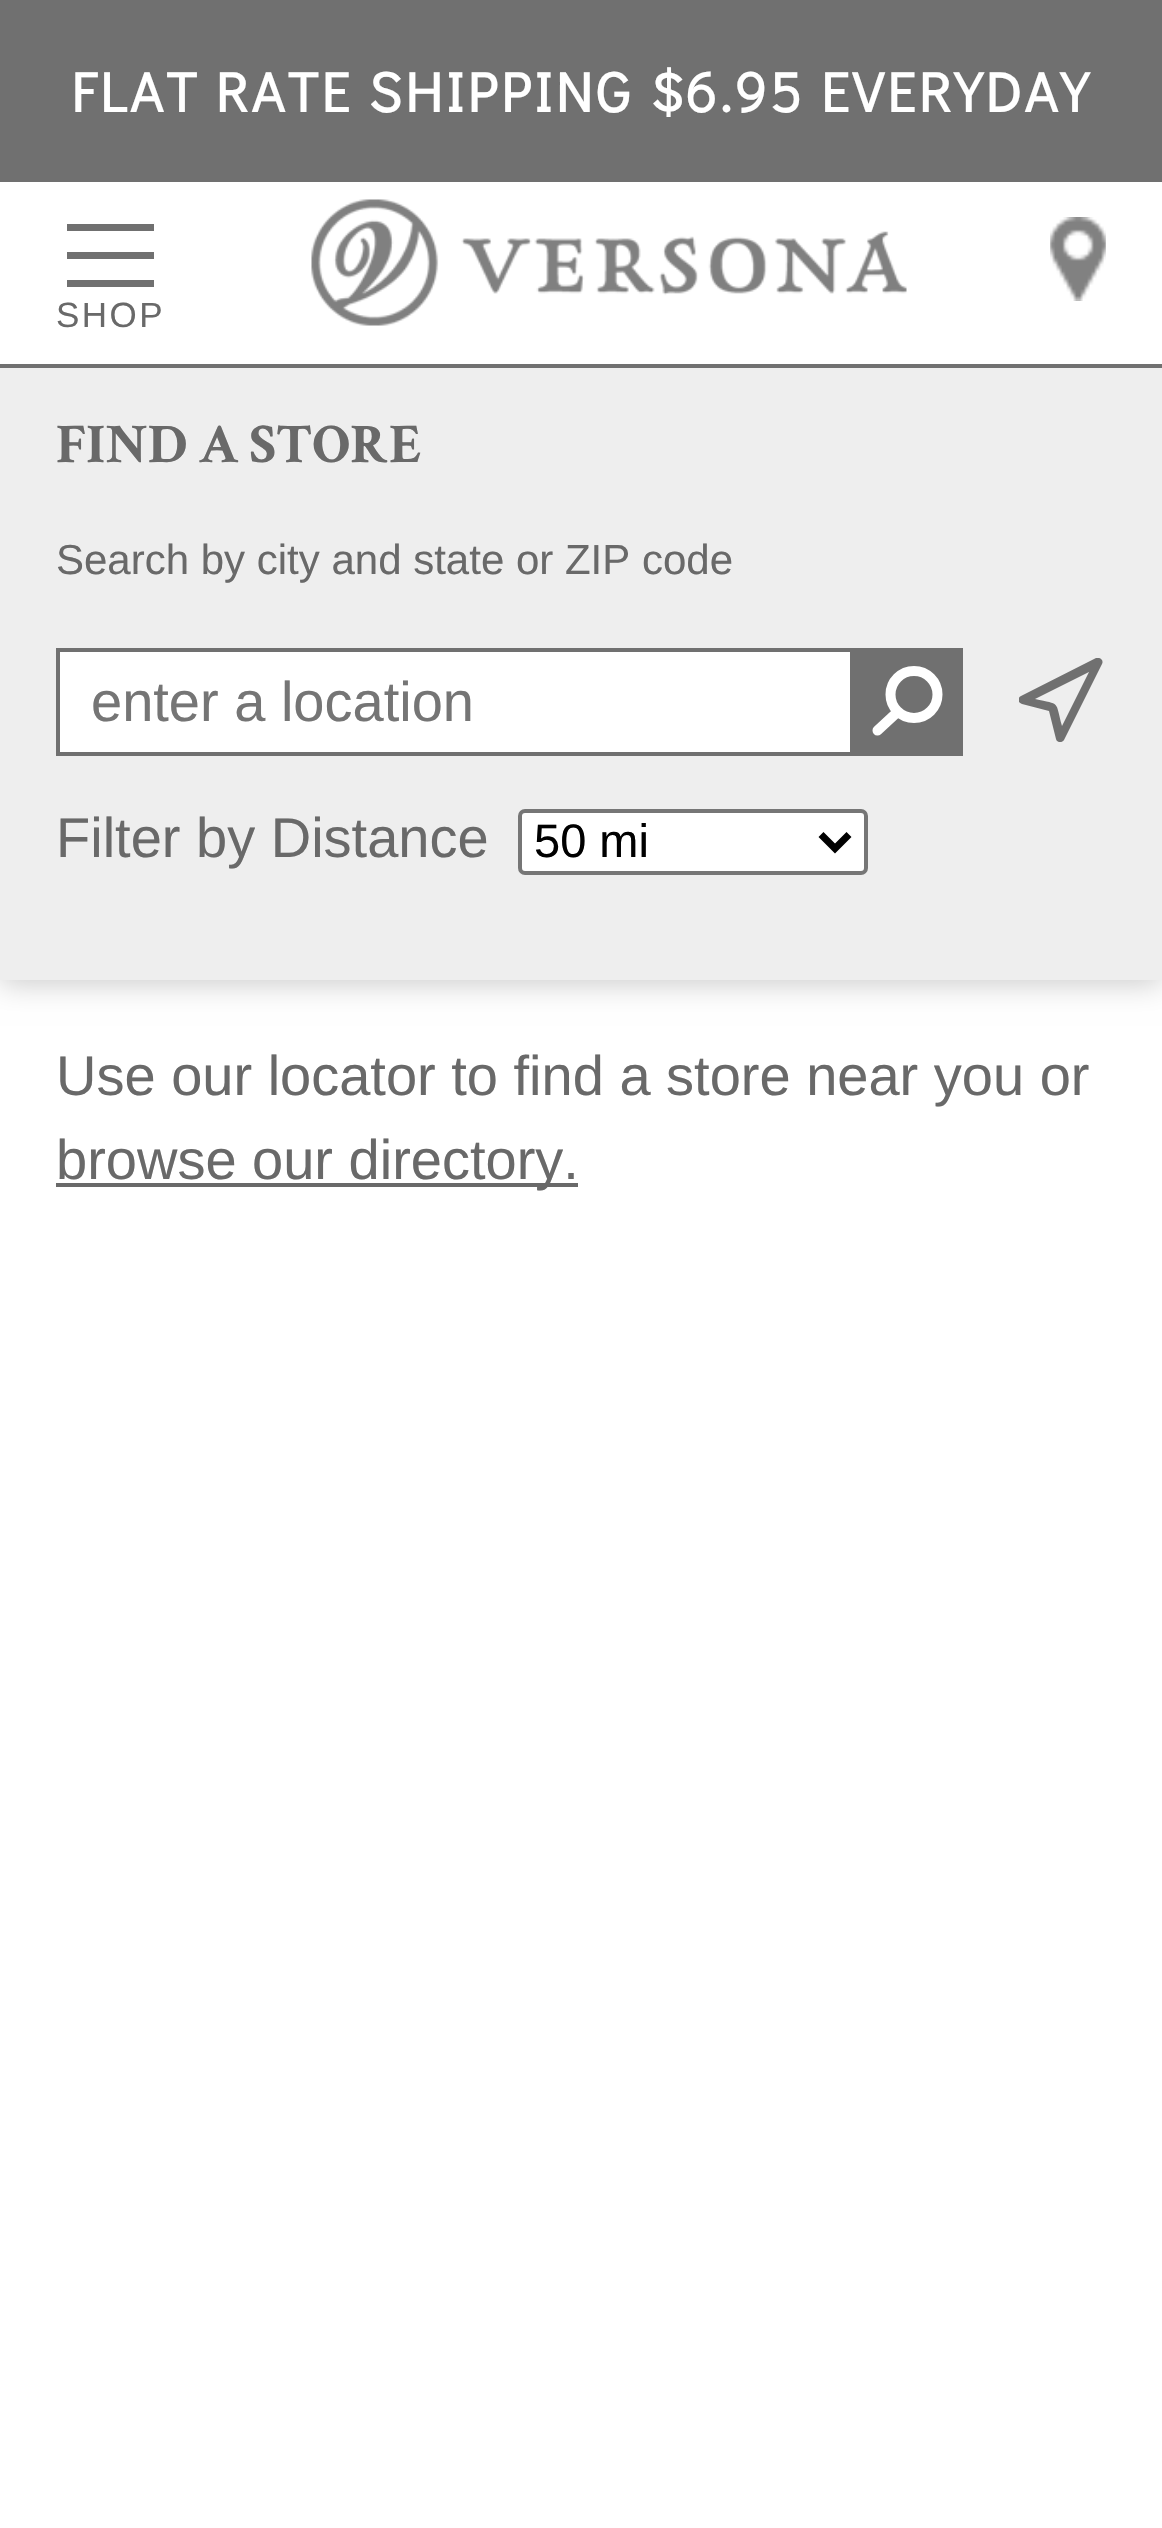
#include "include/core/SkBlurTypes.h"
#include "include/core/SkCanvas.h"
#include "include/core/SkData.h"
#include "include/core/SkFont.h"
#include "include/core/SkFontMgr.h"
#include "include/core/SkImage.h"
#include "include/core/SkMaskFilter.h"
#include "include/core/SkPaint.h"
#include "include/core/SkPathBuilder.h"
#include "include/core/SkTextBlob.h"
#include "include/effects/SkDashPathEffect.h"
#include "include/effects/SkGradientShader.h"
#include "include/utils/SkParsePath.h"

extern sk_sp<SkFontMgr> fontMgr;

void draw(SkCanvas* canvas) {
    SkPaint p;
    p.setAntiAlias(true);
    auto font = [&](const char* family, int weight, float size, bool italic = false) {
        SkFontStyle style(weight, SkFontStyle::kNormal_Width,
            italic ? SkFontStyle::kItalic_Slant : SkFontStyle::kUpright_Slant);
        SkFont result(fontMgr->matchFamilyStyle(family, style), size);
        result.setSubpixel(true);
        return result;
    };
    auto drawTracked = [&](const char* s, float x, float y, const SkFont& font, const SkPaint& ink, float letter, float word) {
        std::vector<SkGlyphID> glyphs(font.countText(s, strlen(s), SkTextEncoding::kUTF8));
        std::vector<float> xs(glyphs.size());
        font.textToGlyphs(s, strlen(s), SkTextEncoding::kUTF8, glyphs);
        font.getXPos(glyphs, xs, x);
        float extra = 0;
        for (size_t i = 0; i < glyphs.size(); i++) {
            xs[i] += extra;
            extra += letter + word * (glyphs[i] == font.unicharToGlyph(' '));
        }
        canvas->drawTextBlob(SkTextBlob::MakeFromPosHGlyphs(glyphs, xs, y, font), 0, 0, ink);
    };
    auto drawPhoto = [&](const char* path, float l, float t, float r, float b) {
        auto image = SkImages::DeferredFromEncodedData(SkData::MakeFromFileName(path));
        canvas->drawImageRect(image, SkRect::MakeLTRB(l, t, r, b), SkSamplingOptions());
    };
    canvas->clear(0xFFFFFFFF);
    p.setColor(0xFF707070);
    canvas->drawRect(SkRect::MakeLTRB(0, 0, 1162, 182), p);
    auto font1 = font("Didact Gothic", 700, 56);
    p.setColor(0xFFFFFFFF);
    drawTracked("FLAT RATE SHIPPING $6.95 EVERYDAY", 71, 112, font1, p, 3.5f, 0);
    p.setColor(0xFF707070);
    canvas->drawRect(SkRect::MakeLTRB(0, 364, 1162, 368), p);
    drawPhoto("media/1.png", 311, 199, 907, 326);
    drawPhoto("media/2.png", 1050, 217, 1106, 301);
    {
        const struct { float l, t, r, b; SkColor color; } items[] = {
            {67, 224, 154, 231, 0xFF707070},
            {67, 252, 154, 259, 0xFF707070},
            {67, 280, 154, 287, 0xFF707070},
        };
        for (auto [l, t, r, b, color] : items) {
            p.setColor(color);
            canvas->drawRect(SkRect::MakeLTRB(l, t, r, b), p);
        }
    }
    auto font2 = font("Liberation Sans", 400, 35);
    p.setColor(0xFF696969);
    drawTracked("SHOP", 56, 327, font2, p, 2.5f, 0);
    p.setColor(0xFFEEEEEE);
    canvas->drawRect(SkRect::MakeLTRB(0, 368, 1162, 536), p);
    auto font3 = font("Crimson Text", 700, 56);
    p.setColor(0xFF696969);
    canvas->drawString("FIND A STORE", 56, 462, font3, p);
    p.setColor(0x33000000);
    p.setMaskFilter(SkMaskFilter::MakeBlur(kNormal_SkBlurStyle, 14));
    canvas->drawRect(SkRect::MakeLTRB(0, 595, 1162, 984), p);
    p.setMaskFilter(nullptr);
    p.setColor(0xFFEEEEEE);
    canvas->drawRect(SkRect::MakeLTRB(0, 536, 1162, 980), p);
    auto font4 = font("Liberation Sans", 400, 42);
    p.setColor(0xFF696969);
    canvas->drawString("Search by city and state or ZIP code", 56, 574, font4, p);
    p.setColor(0xFFFFFFFF);
    canvas->drawRect(SkRect::MakeLTRB(58, 650, 852, 754), p);
    p.setStyle(SkPaint::kStroke_Style);
    p.setStrokeWidth(4);
    p.setColor(0xFF707070);
    canvas->drawRect(SkRect::MakeLTRB(58, 650, 852, 754), p);
    auto font5 = font("Liberation Sans", 400, 56);
    p.setStyle(SkPaint::kFill_Style);
    p.setColor(0xFF757575);
    canvas->drawString("enter a location", 91, 721, font5, p);
    p.setColor(0xFF707070);
    canvas->drawRect(SkRect::MakeLTRB(854, 648, 963, 756), p);
    p.setStyle(SkPaint::kStroke_Style);
    p.setStrokeWidth(10);
    p.setColor(0xFFFFFFFF);
    canvas->drawCircle(914, 694.5f, 23.5f, p);
    p.setStrokeCap(SkPaint::kRound_Cap);
    canvas->drawPath(SkPathBuilder().moveTo(897.5f, 712).lineTo(877.5f, 730.5f).detach(), p);
    canvas->save();
    canvas->clipRect(SkRect::MakeLTRB(1019, 658, 1103, 742));
    p.setStyle(SkPaint::kFill_Style);
    p.setColor(0xFF707070);
    canvas->drawPath(SkPathBuilder(SkPathFillType::kEvenOdd).moveTo(1035, 699).cubicTo(1061, 705, 1055, 700, 1062, 726).lineTo(1089, 672).close().moveTo(1049, 711).lineTo(1022, 704).cubicTo(1018, 703, 1017, 698, 1021, 696).lineTo(1096, 658).cubicTo(1100, 657, 1104, 660, 1102, 664).lineTo(1064, 740).cubicTo(1062, 743, 1057, 743, 1056, 739).close().detach(), p);
    canvas->restore();
    p.setColor(0xFF696969);
    canvas->drawString("Filter by Distance", 56, 857, font5, p);
    p.setColor(0xFFFFFFFF);
    canvas->drawRoundRect(SkRect::MakeLTRB(520, 811, 866, 873), 5, 5, p);
    p.setStyle(SkPaint::kStroke_Style);
    p.setStrokeWidth(4);
    p.setStrokeCap(SkPaint::kButt_Cap);
    p.setColor(0xFF767676);
    canvas->drawRoundRect(SkRect::MakeLTRB(520, 811, 866, 873), 5, 5, p);
    p.setStrokeWidth(7);
    p.setColor(0xFF000000);
    canvas->drawPath(SkPathBuilder().moveTo(821, 834.5f).lineTo(835, 848.5f).lineTo(849, 834.5f).detach(), p);
    auto font6 = font("Liberation Sans", 400, 47);
    p.setStyle(SkPaint::kFill_Style);
    canvas->drawString("50 mi", 534, 857, font6, p);
    p.setColor(0xFF696969);
    canvas->drawString("Use our locator to find a store near you or", 56, 1095, font5, p);
    canvas->drawRect(SkRect::MakeLTRB(56, 1183, 578, 1187), p);
    canvas->drawString("browse our directory.", 56, 1179, font5, p);
}
